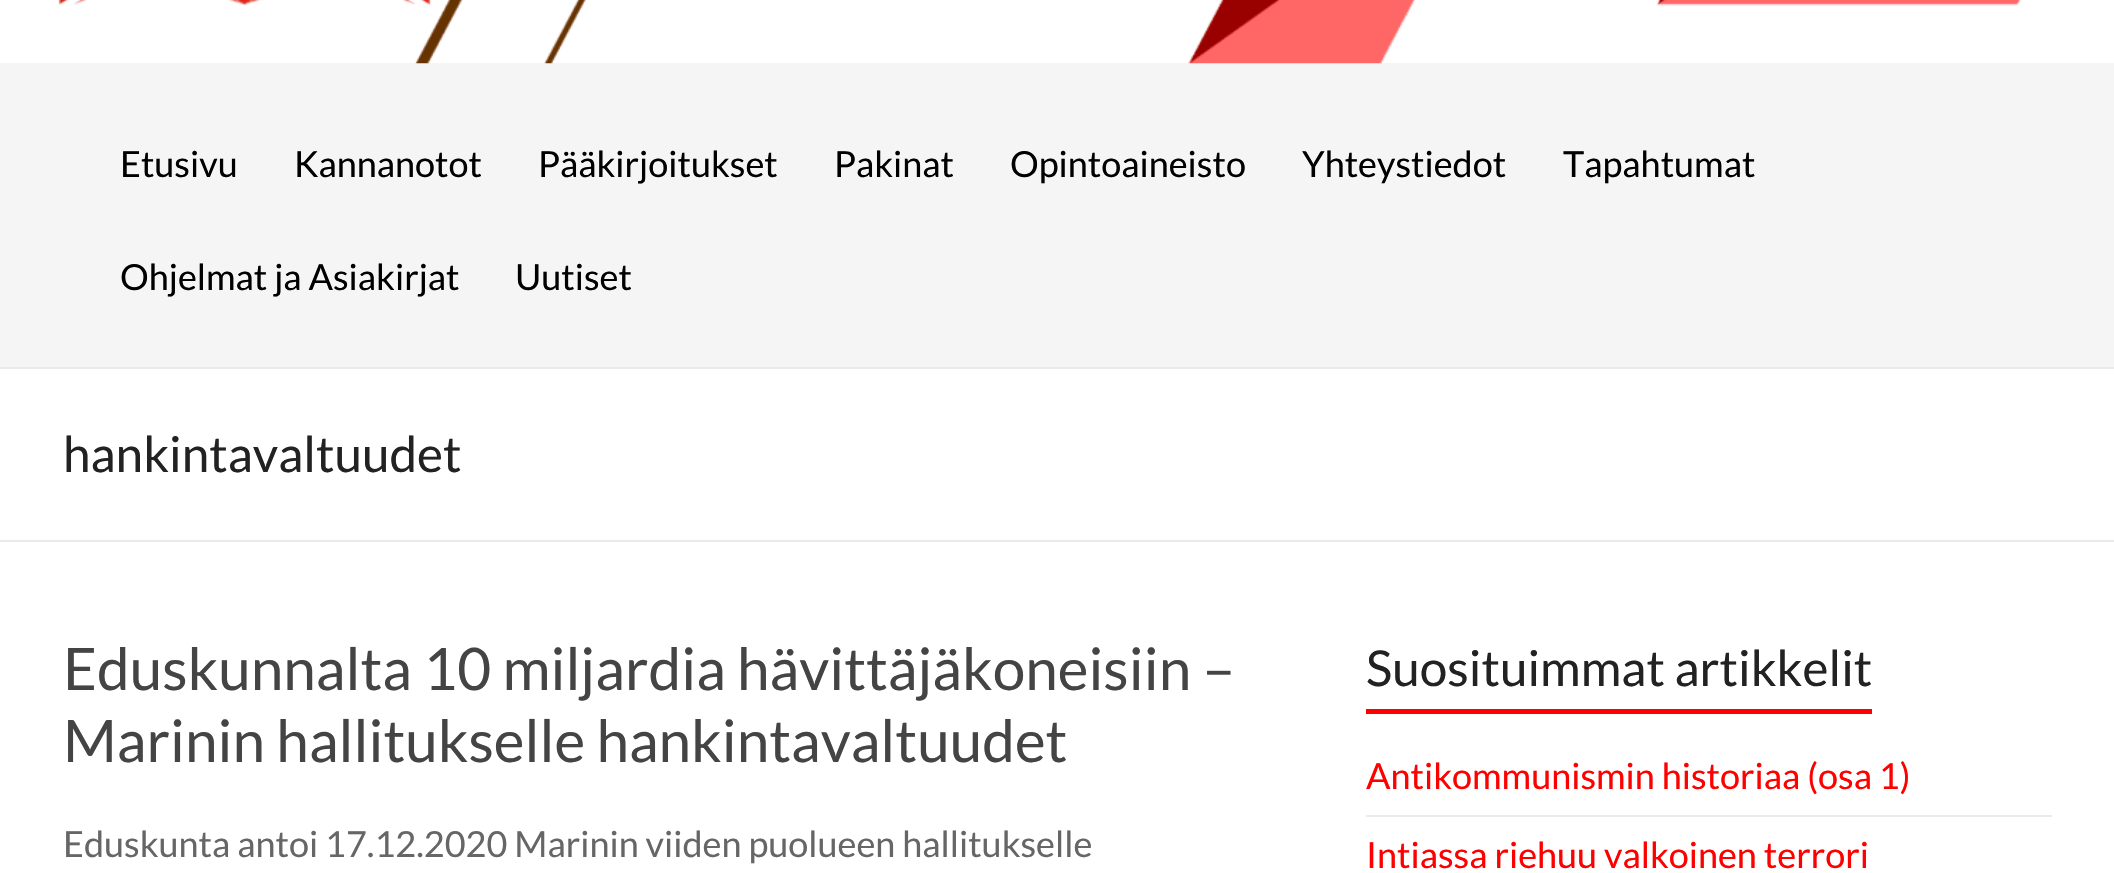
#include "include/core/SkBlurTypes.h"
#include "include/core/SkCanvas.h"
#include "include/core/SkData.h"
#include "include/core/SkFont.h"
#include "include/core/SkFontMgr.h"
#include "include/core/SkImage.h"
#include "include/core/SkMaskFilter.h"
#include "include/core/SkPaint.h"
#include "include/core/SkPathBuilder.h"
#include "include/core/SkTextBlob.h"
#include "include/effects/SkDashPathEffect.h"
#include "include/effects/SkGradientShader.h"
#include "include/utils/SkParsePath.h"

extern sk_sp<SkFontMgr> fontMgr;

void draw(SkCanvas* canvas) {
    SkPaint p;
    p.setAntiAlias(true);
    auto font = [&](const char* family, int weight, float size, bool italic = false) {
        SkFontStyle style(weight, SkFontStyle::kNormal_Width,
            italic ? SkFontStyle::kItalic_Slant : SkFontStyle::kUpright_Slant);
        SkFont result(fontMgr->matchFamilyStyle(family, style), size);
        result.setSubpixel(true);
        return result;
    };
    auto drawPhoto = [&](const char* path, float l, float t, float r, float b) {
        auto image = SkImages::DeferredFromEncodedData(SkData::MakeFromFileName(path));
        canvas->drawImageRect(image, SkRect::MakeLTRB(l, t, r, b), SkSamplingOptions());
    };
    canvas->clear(0xFFFFFFFF);
    p.setColor(0xFFF5F5F5);
    canvas->drawRect(SkRect::MakeLTRB(0, 63, 2114, 367), p);
    drawPhoto("media/1.png", 58, 0, 2021, 64);
    p.setColor(0xFFEAEAEA);
    canvas->drawRect(SkRect::MakeLTRB(0, 367, 2114, 369), p);
    auto font1 = font("Lato", 400, 36);
    p.setColor(0xFF000000);
    {
        const struct { const char* s; float x, y; } items[] = {
            {"Etusivu", 120, 177},
            {"Kannanotot", 294, 177},
            {"Pääkirjoitukset", 538, 177},
            {"Pakinat", 834, 177},
            {"Opintoaineisto", 1010, 177},
            {"Yhteystiedot", 1302, 177},
            {"Tapahtumat", 1563, 177},
            {"Ohjelmat ja Asiakirjat", 120, 290},
            {"Uutiset", 515, 290},
        };
        for (auto [s, x, y] : items) {
            canvas->drawString(s, x, y, font1, p);
        }
    }
    p.setColor(0xFFEAEAEA);
    canvas->drawRect(SkRect::MakeLTRB(0, 540, 2114, 542), p);
    auto font2 = font("Lato", 400, 49.5f);
    p.setColor(0xFF222222);
    canvas->drawString("hankintavaltuudet", 63, 472, font2, p);
    auto font3 = font("Lato", 400, 58.5f);
    p.setColor(0xFF444444);
    canvas->drawString("Eduskunnalta 10 miljardia hävittäjäkoneisiin –", 63, 690, font3, p);
    canvas->drawString("Marinin hallitukselle hankintavaltuudet", 63, 762, font3, p);
    p.setColor(0xFF666666);
    canvas->drawString("Eduskunta antoi 17.12.2020 Marinin viiden puolueen hallitukselle", 63, 857, font1, p);
    p.setColor(0xFF222222);
    canvas->drawString("Suosituimmat artikkelit", 1366, 686, font2, p);
    p.setColor(0xFFFF0000);
    canvas->drawRect(SkRect::MakeLTRB(1366, 709, 1872, 714), p);
    p.setColor(0xFFEAEAEA);
    canvas->drawRect(SkRect::MakeLTRB(1366, 815, 2052, 817), p);
    p.setColor(0xFFFF0000);
    canvas->drawString("Antikommunismin historiaa (osa 1)", 1366, 789, font1, p);
    canvas->drawString("Intiassa riehuu valkoinen terrori", 1366, 868, font1, p);
}
